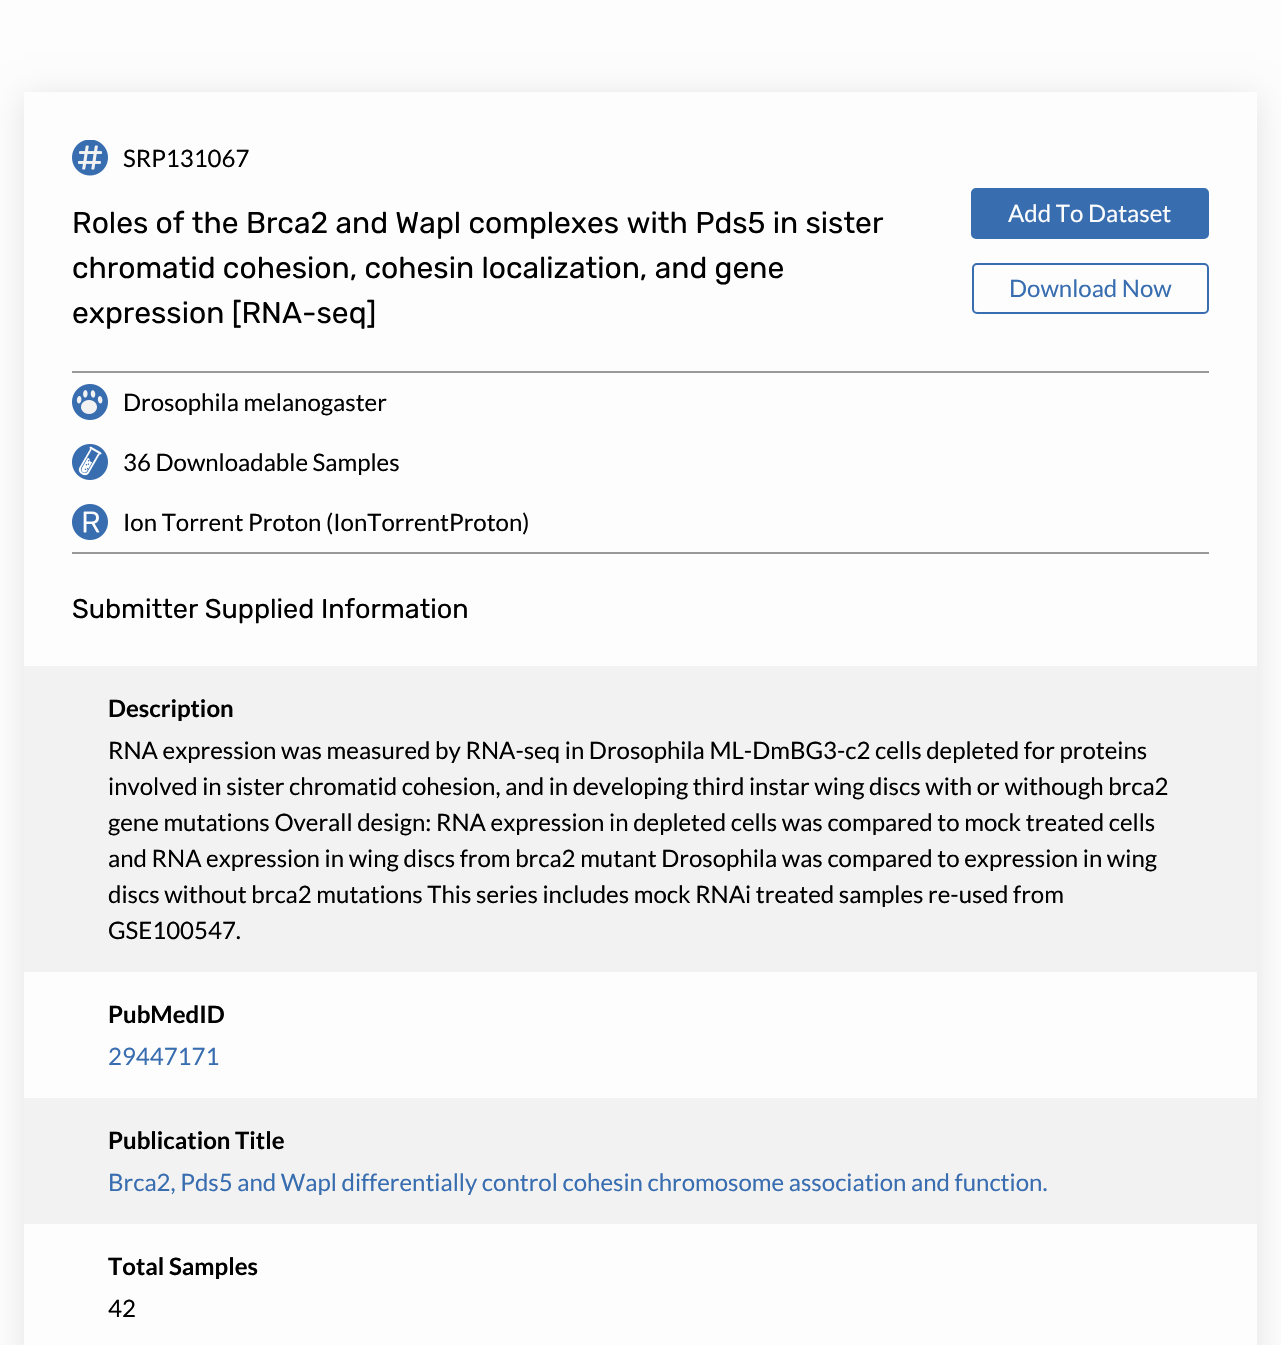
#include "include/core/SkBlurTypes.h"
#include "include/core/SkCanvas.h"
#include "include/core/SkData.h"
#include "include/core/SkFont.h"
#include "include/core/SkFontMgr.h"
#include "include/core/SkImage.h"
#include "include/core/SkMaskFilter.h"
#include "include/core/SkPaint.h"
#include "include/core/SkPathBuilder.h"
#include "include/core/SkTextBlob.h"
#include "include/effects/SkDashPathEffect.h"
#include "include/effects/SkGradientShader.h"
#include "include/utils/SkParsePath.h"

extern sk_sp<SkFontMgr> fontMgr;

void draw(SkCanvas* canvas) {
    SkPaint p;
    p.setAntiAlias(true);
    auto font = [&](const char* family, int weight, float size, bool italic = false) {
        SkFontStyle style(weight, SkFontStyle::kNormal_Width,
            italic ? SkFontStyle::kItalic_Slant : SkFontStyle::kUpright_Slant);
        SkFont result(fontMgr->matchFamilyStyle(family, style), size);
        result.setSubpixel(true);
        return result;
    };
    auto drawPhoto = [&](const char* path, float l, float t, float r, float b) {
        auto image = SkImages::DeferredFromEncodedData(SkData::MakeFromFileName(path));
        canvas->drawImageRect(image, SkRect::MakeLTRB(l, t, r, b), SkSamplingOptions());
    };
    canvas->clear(0xFFFDFDFD);
    canvas->save();
    canvas->clipPath(SkPathBuilder(SkPathFillType::kEvenOdd).moveTo(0, 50).lineTo(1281, 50).lineTo(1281, 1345).lineTo(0, 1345).close().moveTo(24, 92).lineTo(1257, 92).lineTo(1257, 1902).lineTo(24, 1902).close().detach(), true);
    p.setColor(0x1A000000);
    p.setMaskFilter(SkMaskFilter::MakeBlur(kNormal_SkBlurStyle, 15));
    canvas->drawRect(SkRect::MakeLTRB(24, 96, 1257, 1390), p);
    p.setMaskFilter(nullptr);
    canvas->restore();
    drawPhoto("media/1.png", 72, 140, 108, 176);
    auto font1 = font("Lato", 400, 24);
    p.setColor(0xFF000000);
    canvas->drawString("SRP131067", 123, 167, font1, p);
    auto font2 = font("Rubik", 400, 30);
    {
        const struct { const char* s; float x, y; } items[] = {
            {"Roles of the Brca2 and Wapl complexes with Pds5 in sister", 72, 233},
            {"chromatid cohesion, cohesin localization, and gene", 72, 278},
            {"expression [RNA-seq]", 72, 323},
        };
        for (auto [s, x, y] : items) {
            canvas->drawString(s, x, y, font2, p);
        }
    }
    p.setColor(0xFF386DB0);
    canvas->drawRoundRect(SkRect::MakeLTRB(972, 189, 1208, 238), 4, 4, p);
    p.setStyle(SkPaint::kStroke_Style);
    p.setStrokeWidth(2);
    canvas->drawRoundRect(SkRect::MakeLTRB(972, 189, 1208, 238), 4, 4, p);
    p.setStyle(SkPaint::kFill_Style);
    p.setColor(0xFFFDFDFD);
    canvas->drawString("Add To Dataset", 1008, 222, font1, p);
    p.setStyle(SkPaint::kStroke_Style);
    p.setColor(0xFF386DB0);
    canvas->drawRoundRect(SkRect::MakeLTRB(973, 264, 1208, 313), 4, 4, p);
    p.setStyle(SkPaint::kFill_Style);
    canvas->drawString("Download Now", 1009, 297, font1, p);
    p.setColor(0xFF999999);
    canvas->drawRect(SkRect::MakeLTRB(72, 371, 1209, 373), p);
    canvas->drawRect(SkRect::MakeLTRB(72, 552, 1209, 554), p);
    drawPhoto("media/2.png", 72, 384, 108, 420);
    p.setColor(0xFF000000);
    canvas->drawString("Drosophila melanogaster", 123, 411, font1, p);
    drawPhoto("media/3.png", 72, 444, 108, 480);
    canvas->drawString("36 Downloadable Samples", 123, 471, font1, p);
    drawPhoto("media/4.png", 72, 504, 108, 540);
    canvas->drawString("Ion Torrent Proton (IonTorrentProton)", 123, 531, font1, p);
    auto font3 = font("Rubik", 400, 27);
    canvas->drawString("Submitter Supplied Information", 72, 618, font3, p);
    p.setColor(0xFFF2F2F2);
    canvas->drawRect(SkRect::MakeLTRB(24, 666, 1257, 972), p);
    auto font4 = font("Lato", 700, 24);
    p.setColor(0xFF000000);
    canvas->drawString("Description", 108, 717, font4, p);
    {
        const struct { const char* s; float x, y; } items[] = {
            {"RNA expression was measured by RNA-seq in Drosophila ML-DmBG3-c2 cells depleted for proteins", 108, 759},
            {"involved in sister chromatid cohesion, and in developing third instar wing discs with or withough brca2", 108, 795},
            {"gene mutations Overall design: RNA expression in depleted cells was compared to mock treated cells", 108, 831},
            {"and RNA expression in wing discs from brca2 mutant Drosophila was compared to expression in wing", 108, 867},
            {"discs without brca2 mutations This series includes mock RNAi treated samples re-used from", 108, 903},
            {"GSE100547.", 108, 939},
        };
        for (auto [s, x, y] : items) {
            canvas->drawString(s, x, y, font1, p);
        }
    }
    canvas->drawString("PubMedID", 108, 1023, font4, p);
    p.setColor(0xFF386DB0);
    canvas->drawString("29447171", 108, 1065, font1, p);
    p.setColor(0xFFF2F2F2);
    canvas->drawRect(SkRect::MakeLTRB(24, 1098, 1257, 1224), p);
    p.setColor(0xFF000000);
    canvas->drawString("Publication Title", 108, 1149, font4, p);
    p.setColor(0xFF386DB0);
    canvas->drawString("Brca2, Pds5 and Wapl differentially control cohesin chromosome association and function.", 108, 1191, font1, p);
    p.setColor(0xFF000000);
    canvas->drawString("Total Samples", 108, 1275, font4, p);
    canvas->drawString("42", 108, 1317, font1, p);
}
